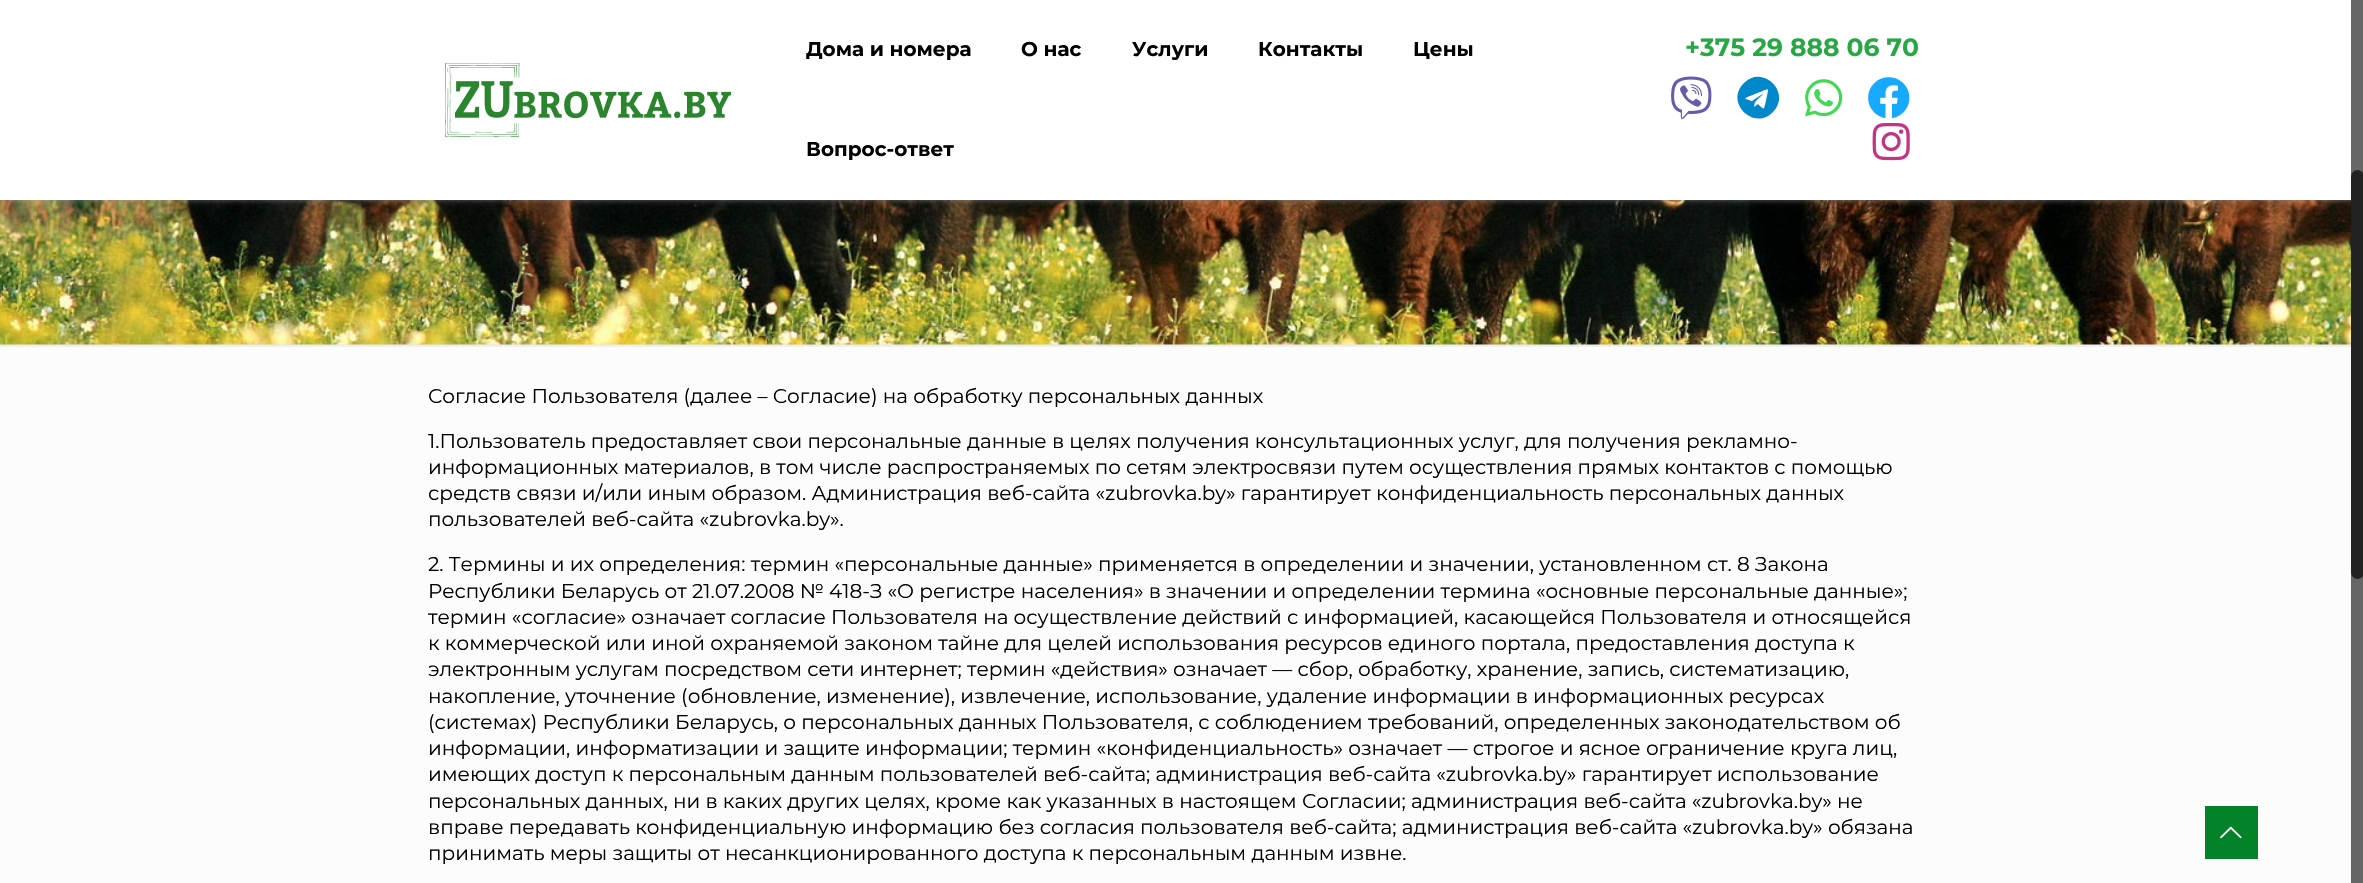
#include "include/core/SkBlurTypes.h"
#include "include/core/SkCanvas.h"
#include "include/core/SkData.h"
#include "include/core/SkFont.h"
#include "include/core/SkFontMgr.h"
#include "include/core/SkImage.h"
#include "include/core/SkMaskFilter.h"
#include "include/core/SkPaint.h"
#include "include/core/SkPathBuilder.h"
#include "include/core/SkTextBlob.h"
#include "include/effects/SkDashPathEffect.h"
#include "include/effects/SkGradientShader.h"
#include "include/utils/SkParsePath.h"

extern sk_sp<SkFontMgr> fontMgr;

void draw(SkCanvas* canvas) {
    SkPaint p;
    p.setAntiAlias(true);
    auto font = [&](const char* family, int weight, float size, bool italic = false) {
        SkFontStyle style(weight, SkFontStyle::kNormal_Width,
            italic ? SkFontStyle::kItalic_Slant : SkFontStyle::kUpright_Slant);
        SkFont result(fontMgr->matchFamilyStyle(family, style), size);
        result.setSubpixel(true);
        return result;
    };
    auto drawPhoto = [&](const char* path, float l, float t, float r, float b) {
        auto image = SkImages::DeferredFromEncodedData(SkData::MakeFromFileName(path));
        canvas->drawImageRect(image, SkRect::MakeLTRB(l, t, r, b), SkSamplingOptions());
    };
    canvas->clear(0xFFFCFCFC);
    p.setColor(0xFFFFFFFF);
    canvas->drawRect(SkRect::MakeLTRB(0, 344, 2351, 345), p);
    drawPhoto("media/1.png", 0, 200, 2351, 345);
    p.setColor(0x99A3A3A3);
    p.setMaskFilter(SkMaskFilter::MakeBlur(kNormal_SkBlurStyle, 3));
    canvas->drawRect(SkRect::MakeLTRB(6, 13, 2358, 200), p);
    p.setMaskFilter(nullptr);
    p.setColor(0xFFFFFFFF);
    canvas->drawRect(SkRect::MakeLTRB(0, 0, 2351, 200), p);
    drawPhoto("media/2.png", 445, 63, 731, 137);
    auto font1 = font("Montserrat", 700, 20);
    p.setColor(0xFF000000);
    {
        const struct { const char* s; float x, y; } items[] = {
            {"Дома и номера", 806, 56},
            {"О нас", 1021, 56},
            {"Услуги", 1132, 56},
            {"Контакты", 1258, 56},
            {"Цены", 1413, 56},
            {"Вопрос-ответ", 806, 156},
        };
        for (auto [s, x, y] : items) {
            canvas->drawString(s, x, y, font1, p);
        }
    }
    auto font2 = font("Montserrat", 700, 25);
    p.setColor(0xFF28A745);
    canvas->drawString("+375 29 888 06 70", 1685, 56, font2, p);
    drawPhoto("media/3.png", 1671, 76, 1712, 120);
    p.setColor(0xFF0088CC);
    canvas->drawPath(SkPathBuilder().moveTo(1744, 83).cubicTo(1763, 64, 1792, 93, 1773, 112).cubicTo(1754, 132, 1724, 102, 1744, 83).close().moveTo(1768, 91).cubicTo(1769, 87, 1761, 92, 1760, 92).lineTo(1750, 96).cubicTo(1742, 99, 1746, 99, 1752, 101).lineTo(1764, 93).lineTo(1755, 102).lineTo(1754, 107).lineTo(1758, 104).cubicTo(1762, 108, 1764, 111, 1765, 105).close().detach(), p);
    drawPhoto("media/4.png", 1805, 79, 1843, 117);
    drawPhoto("media/5.png", 1868, 77, 1910, 119);
    drawPhoto("media/6.png", 1872, 123, 1910, 161);
    p.setColor(0x0D000000);
    canvas->drawRect(SkRect::MakeLTRB(0, 344, 2351, 347), p);
    auto font3 = font("Montserrat", 400, 20);
    p.setColor(0xFF000000);
    {
        const struct { const char* s; float x, y; } items[] = {
            {"Согласие Пользователя (далее – Согласие) на обработку персональных данных", 428, 403},
            {"1.Пользователь предоставляет свои персональные данные в целях получения консультационных услуг, для получения рекламно-", 428, 448},
            {"информационных материалов, в том числе распространяемых по сетям электросвязи путем осуществления прямых контактов с помощью", 428, 474},
            {"средств связи и/или иным образом. Администрация веб-сайта «zubrovka.by» гарантирует конфиденциальность персональных данных", 428, 500},
            {"пользователей веб-сайта «zubrovka.by».", 428, 526},
            {"2. Термины и их определения: термин «персональные данные» применяется в определении и значении, установленном ст. 8 Закона", 428, 571},
            {"Республики Беларусь от 21.07.2008 № 418-З «О регистре населения» в значении и определении термина «основные персональные данные»;", 428, 598},
            {"термин «согласие» означает согласие Пользователя на осуществление действий с информацией, касающейся Пользователя и относящейся", 428, 624},
            {"к коммерческой или иной охраняемой законом тайне для целей использования ресурсов единого портала, предоставления доступа к", 428, 650},
            {"электронным услугам посредством сети интернет; термин «действия» означает — сбор, обработку, хранение, запись, систематизацию,", 428, 676},
            {"накопление, уточнение (обновление, изменение), извлечение, использование, удаление информации в информационных ресурсах", 428, 703},
            {"(системах) Республики Беларусь, о персональных данных Пользователя, с соблюдением требований, определенных законодательством об", 428, 729},
            {"информации, информатизации и защите информации; термин «конфиденциальность» означает — строгое и ясное ограничение круга лиц,", 428, 755},
            {"имеющих доступ к персональным данным пользователей веб-сайта; администрация веб-сайта «zubrovka.by» гарантирует использование", 428, 781},
            {"персональных данных, ни в каких других целях, кроме как указанных в настоящем Согласии; администрация веб-сайта «zubrovka.by» не", 428, 808},
            {"вправе передавать конфиденциальную информацию без согласия пользователя веб-сайта; администрация веб-сайта «zubrovka.by» обязана", 428, 834},
            {"принимать меры защиты от несанкционированного доступа к персональным данным извне.", 428, 860},
        };
        for (auto [s, x, y] : items) {
            canvas->drawString(s, x, y, font3, p);
        }
    }
    p.setColor(0xFF038228);
    canvas->drawRect(SkRect::MakeLTRB(2205, 806, 2258, 859), p);
    drawPhoto("media/7.png", 2220, 826, 2242, 839);
    p.setColor(0xFF666666);
    canvas->drawRect(SkRect::MakeLTRB(2351, 0, 2363, 883), p);
    p.setColor(0xFF222222);
    canvas->drawRoundRect(SkRect::MakeLTRB(2351, 170, 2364, 579), 6.5f, 6.5f, p);
}
